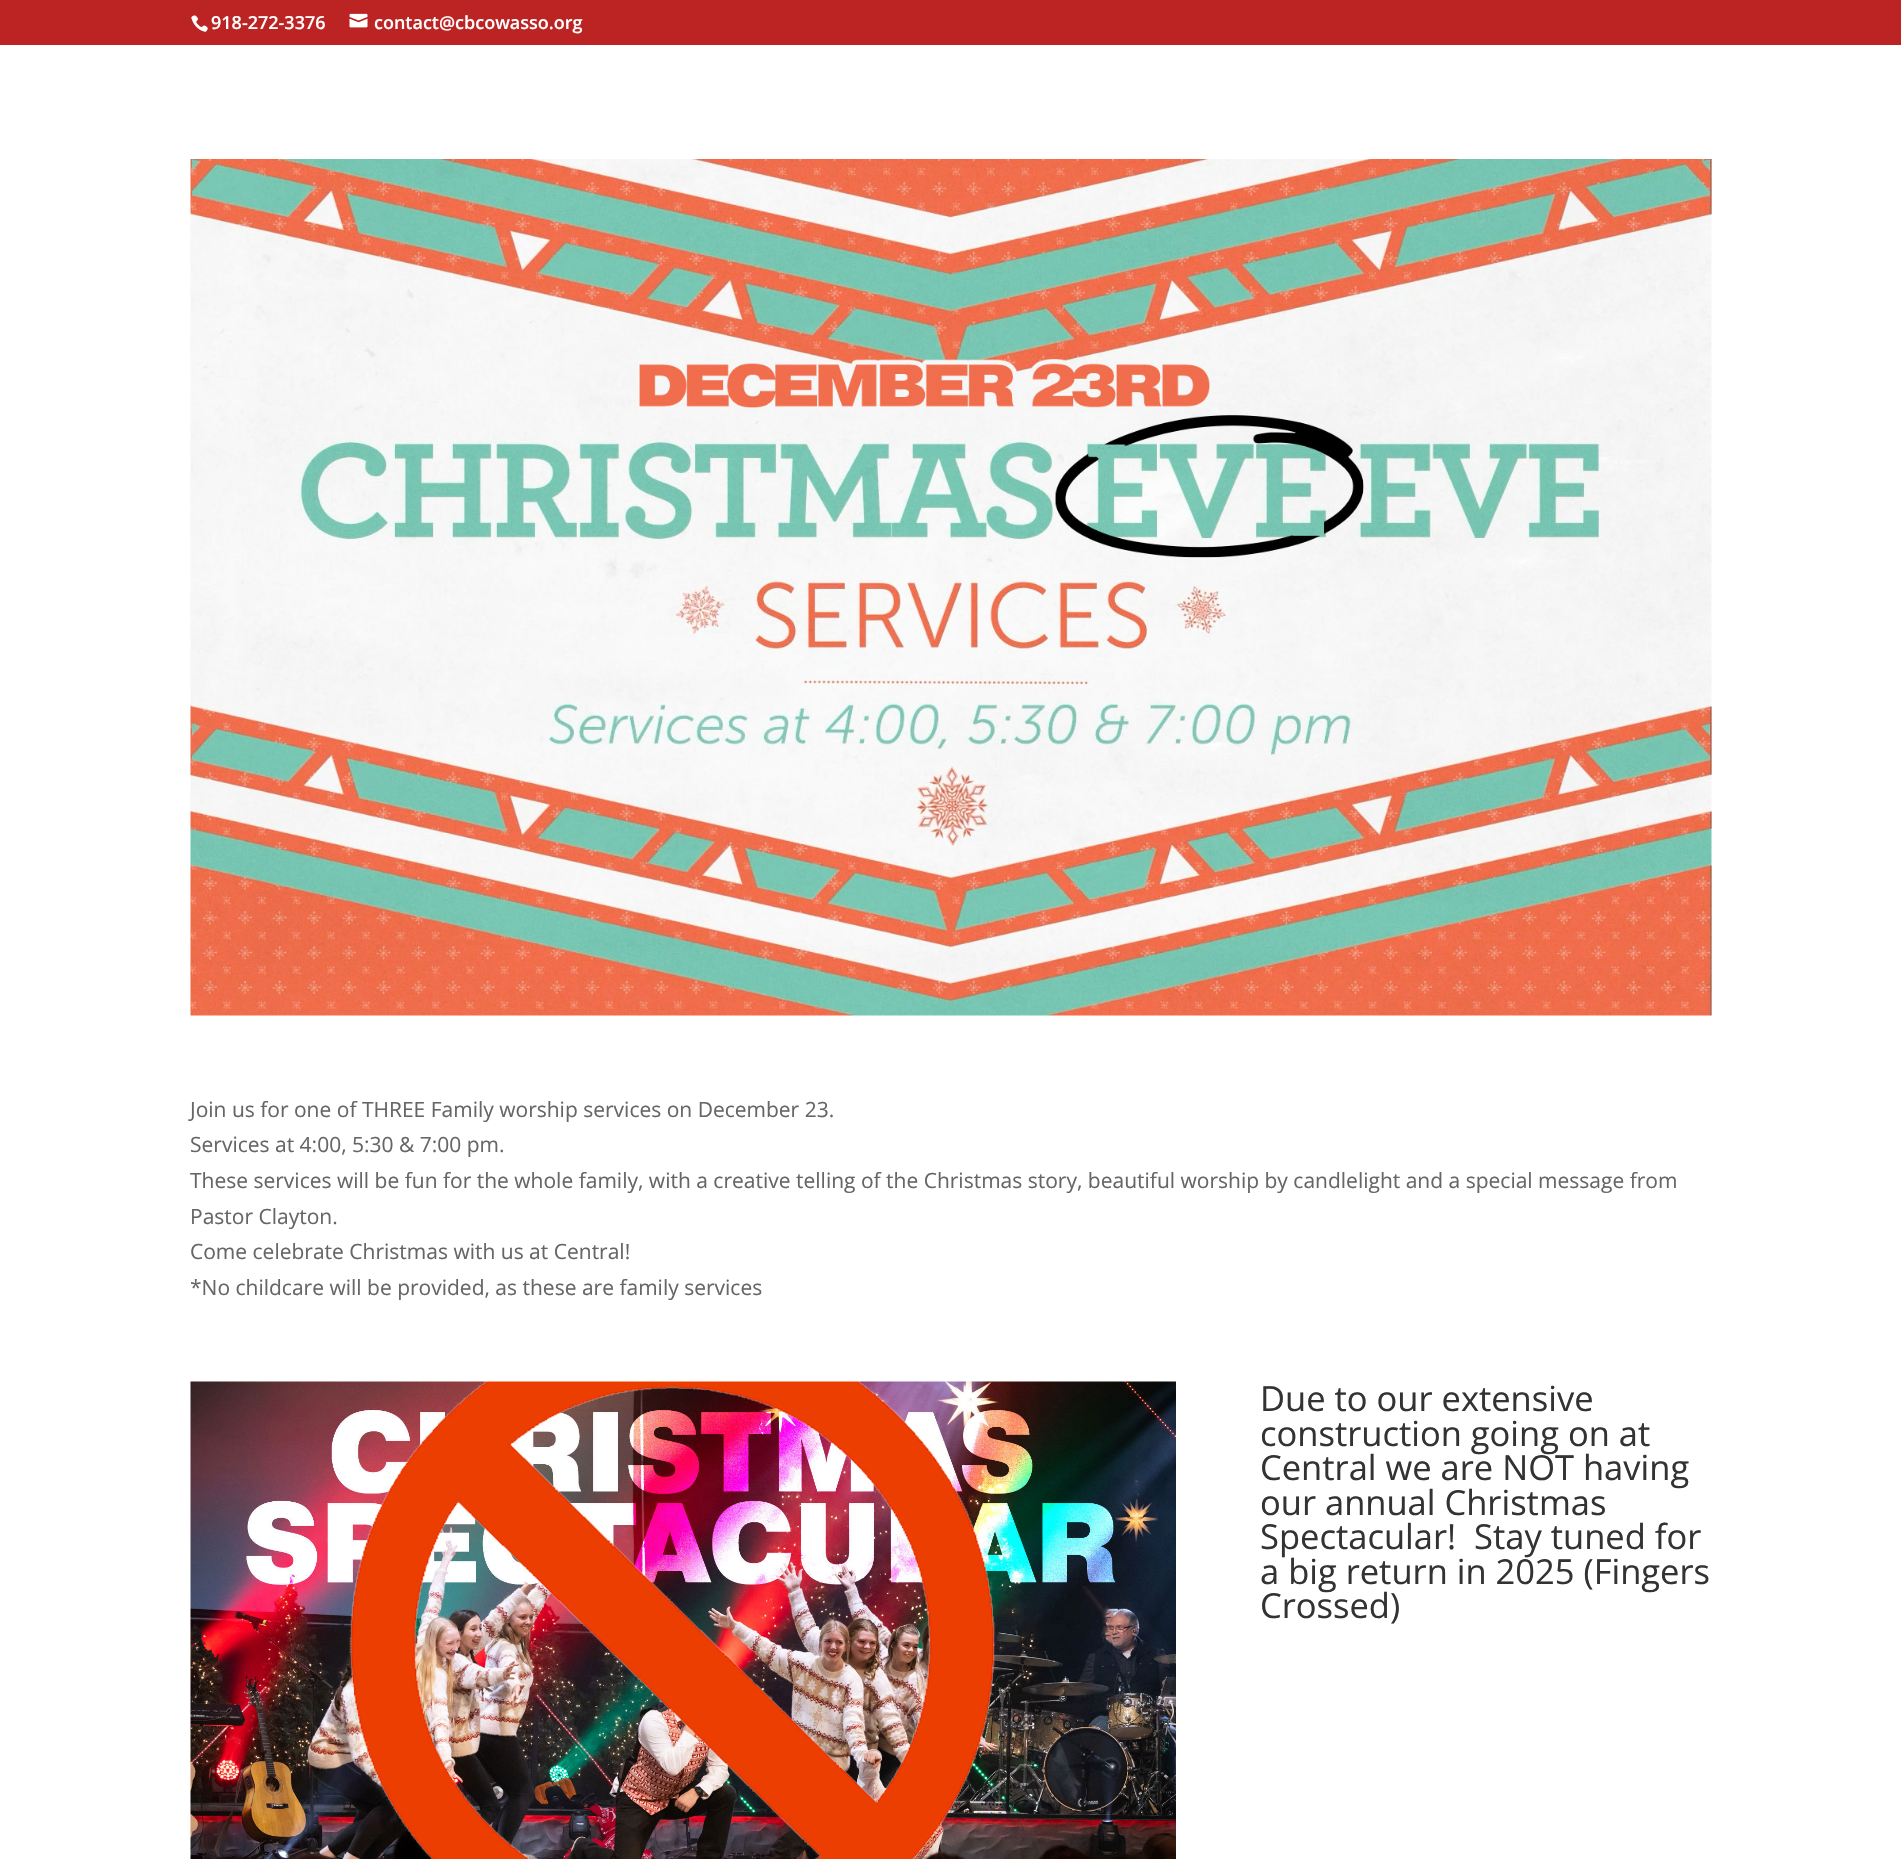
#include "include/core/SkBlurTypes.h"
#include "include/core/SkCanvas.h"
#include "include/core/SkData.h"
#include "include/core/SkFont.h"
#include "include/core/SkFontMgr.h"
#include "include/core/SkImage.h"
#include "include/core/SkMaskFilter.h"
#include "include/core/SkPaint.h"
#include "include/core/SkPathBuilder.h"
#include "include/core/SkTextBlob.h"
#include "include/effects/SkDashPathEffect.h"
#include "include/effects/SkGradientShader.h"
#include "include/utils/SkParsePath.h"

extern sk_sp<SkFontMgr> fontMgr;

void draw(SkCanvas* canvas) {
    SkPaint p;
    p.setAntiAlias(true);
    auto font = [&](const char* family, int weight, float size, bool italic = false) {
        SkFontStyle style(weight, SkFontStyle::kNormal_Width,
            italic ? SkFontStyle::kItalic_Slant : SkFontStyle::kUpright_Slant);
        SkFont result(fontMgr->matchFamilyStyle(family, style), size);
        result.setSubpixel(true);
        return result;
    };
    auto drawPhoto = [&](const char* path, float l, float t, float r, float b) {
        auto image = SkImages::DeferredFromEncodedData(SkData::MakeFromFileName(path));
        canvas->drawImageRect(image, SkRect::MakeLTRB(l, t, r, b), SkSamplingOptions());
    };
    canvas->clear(0xFFFFFFFF);
    p.setColor(0xFFBC2323);
    canvas->drawRect(SkRect::MakeLTRB(0, 0, 1901, 45), p);
    drawPhoto("media/1.png", 191, 15, 208, 32);
    auto font1 = font("Open Sans", 600, 18);
    p.setColor(0xFFFFFFFF);
    canvas->drawString("918-272-3376", 211, 29, font1, p);
    drawPhoto("media/2.png", 349, 13, 368, 28);
    canvas->drawString("contact@cbcowasso.org", 374, 29, font1, p);
    drawPhoto("media/3.png", 190, 159, 1712, 1016);
    auto font2 = font("Open Sans", 400, 21);
    p.setColor(0xFF666666);
    {
        const struct { const char* s; float x, y; } items[] = {
            {"Join us for one of THREE Family worship services on December 23.", 190, 1117},
            {"Services at 4:00, 5:30 & 7:00 pm.", 190, 1152},
            {"These services will be fun for the whole family, with a creative telling of the Christmas story, beautiful worship by candlelight and a special message from", 190, 1188},
            {"Pastor Clayton.", 190, 1224},
            {"Come celebrate Christmas with us at Central!", 190, 1259},
            {"*No childcare will be provided, as these are family services", 190, 1295},
        };
        for (auto [s, x, y] : items) {
            canvas->drawString(s, x, y, font2, p);
        }
    }
    drawPhoto("media/4.png", 190, 1381, 1176, 1859);
    auto font3 = font("Open Sans", 400, 34.5f);
    p.setColor(0xFF333333);
    {
        const struct { const char* s; float x, y; } items[] = {
            {"Due to our extensive", 1260, 1411},
            {"construction going on at", 1260, 1446},
            {"Central we are NOT having", 1260, 1480},
            {"our annual Christmas", 1260, 1515},
            {"Spectacular!  Stay tuned for", 1260, 1549},
            {"a big return in 2025 (Fingers", 1260, 1584},
            {"Crossed)", 1260, 1618},
        };
        for (auto [s, x, y] : items) {
            canvas->drawString(s, x, y, font3, p);
        }
    }
}
